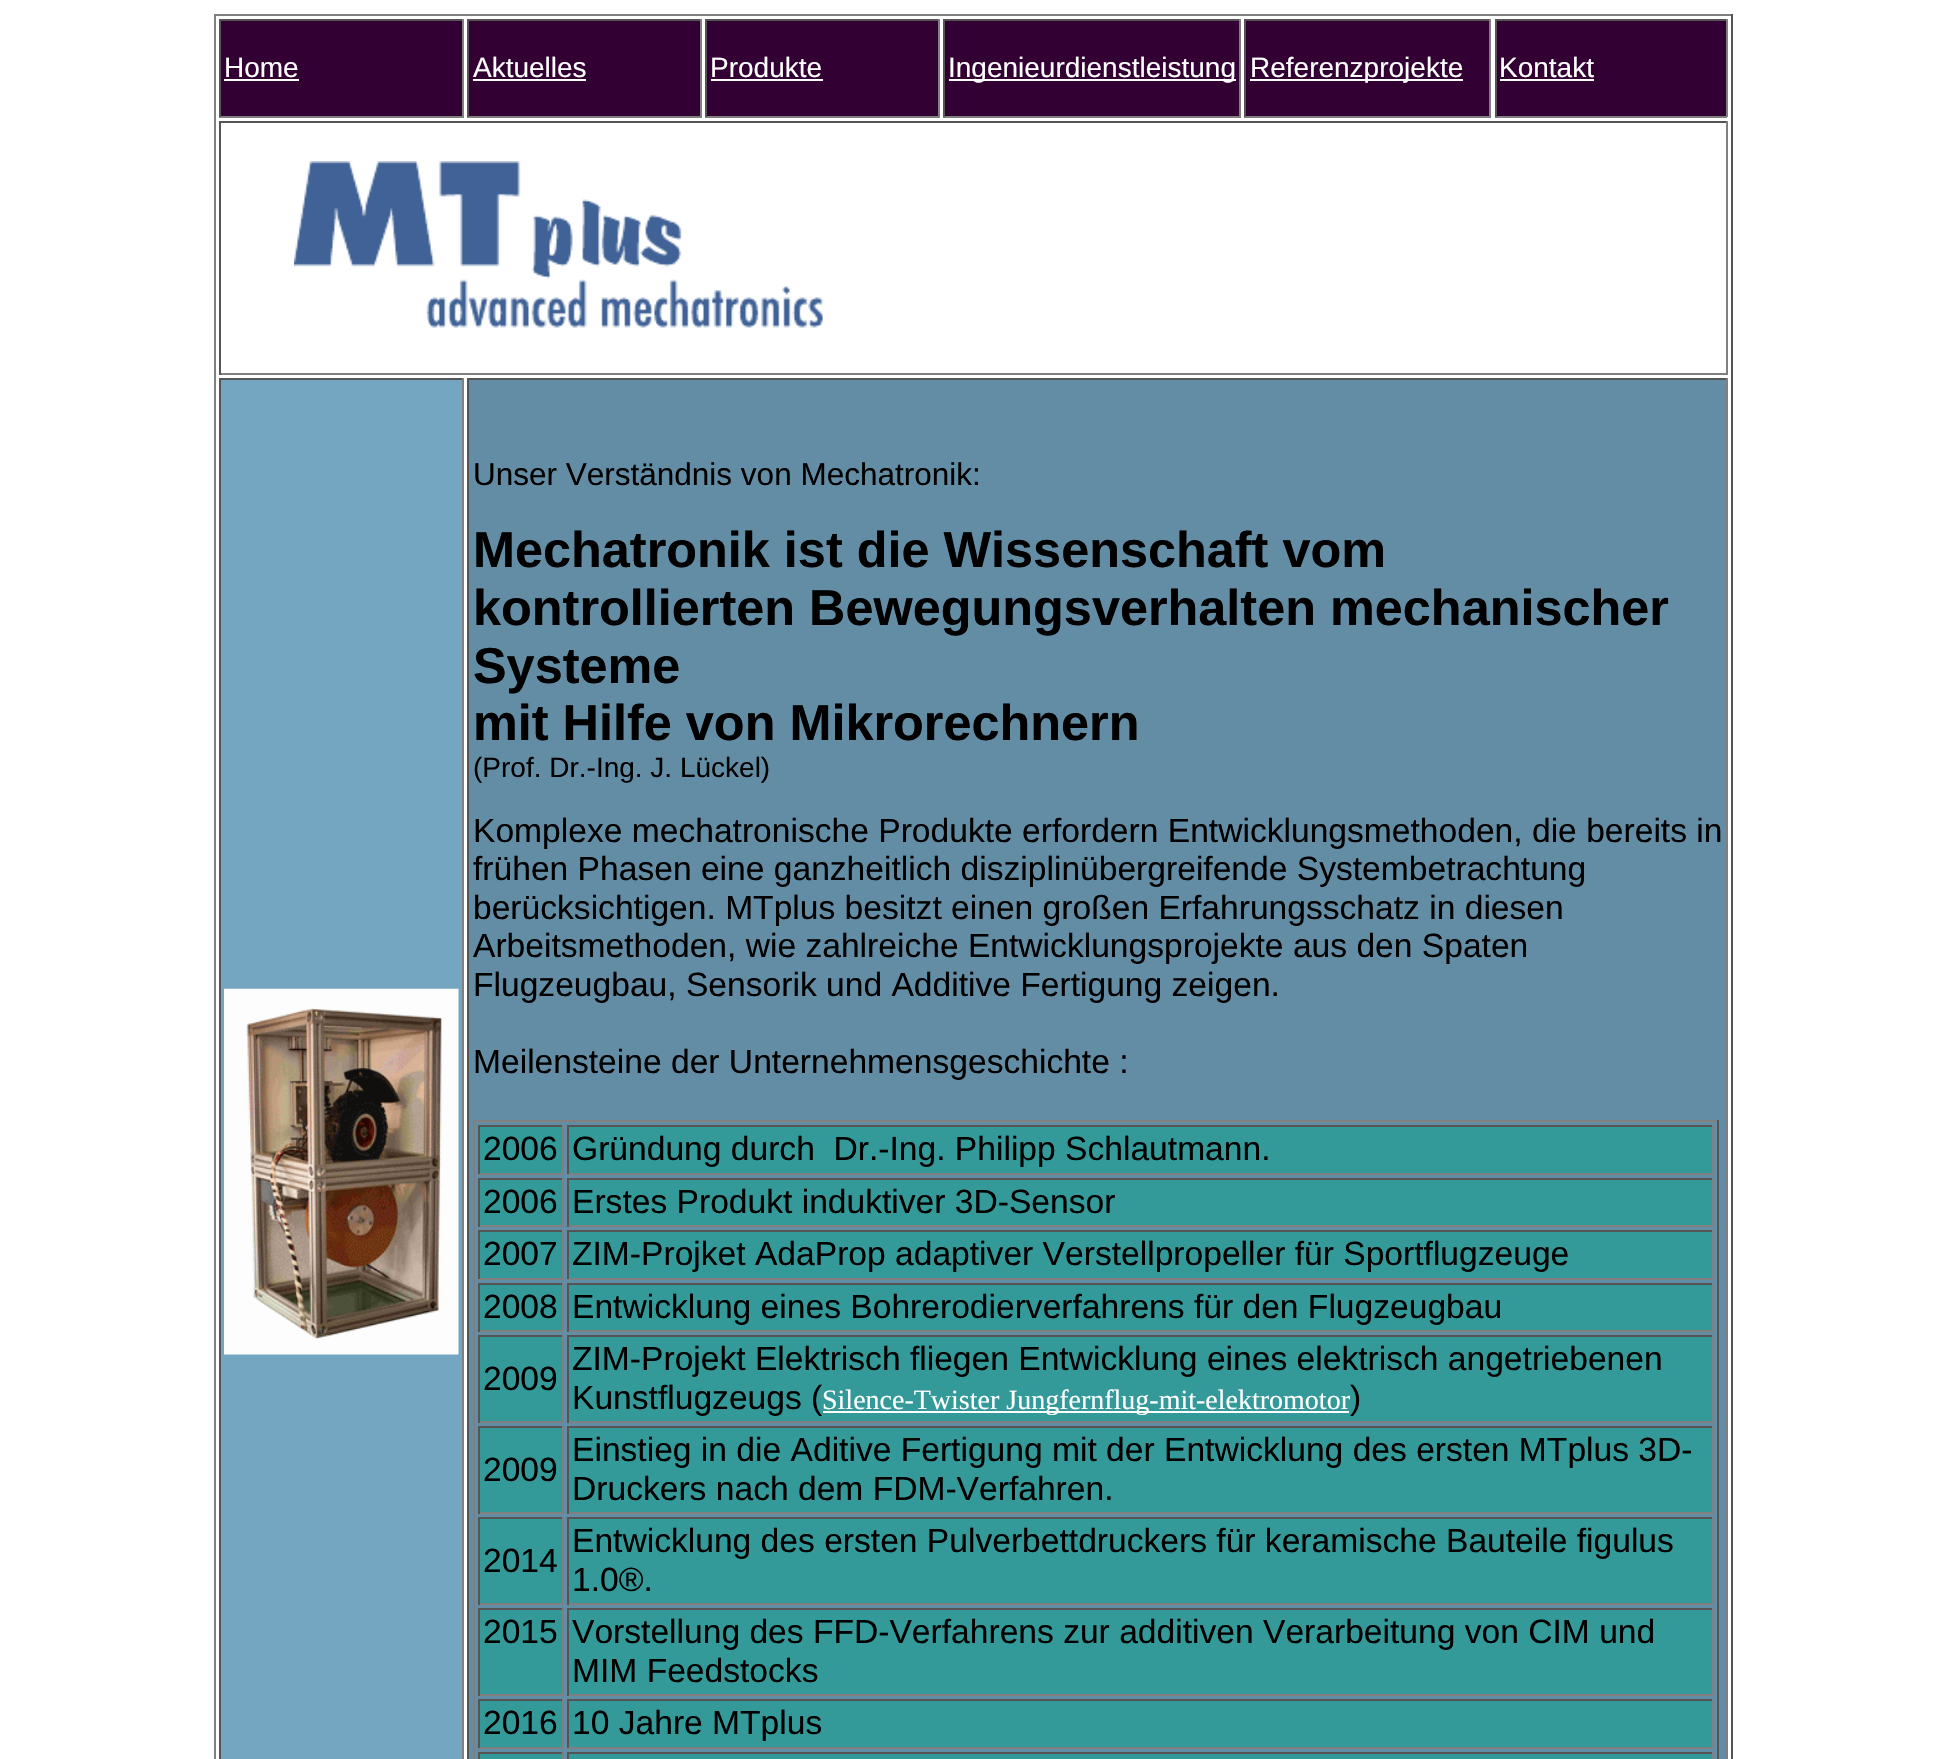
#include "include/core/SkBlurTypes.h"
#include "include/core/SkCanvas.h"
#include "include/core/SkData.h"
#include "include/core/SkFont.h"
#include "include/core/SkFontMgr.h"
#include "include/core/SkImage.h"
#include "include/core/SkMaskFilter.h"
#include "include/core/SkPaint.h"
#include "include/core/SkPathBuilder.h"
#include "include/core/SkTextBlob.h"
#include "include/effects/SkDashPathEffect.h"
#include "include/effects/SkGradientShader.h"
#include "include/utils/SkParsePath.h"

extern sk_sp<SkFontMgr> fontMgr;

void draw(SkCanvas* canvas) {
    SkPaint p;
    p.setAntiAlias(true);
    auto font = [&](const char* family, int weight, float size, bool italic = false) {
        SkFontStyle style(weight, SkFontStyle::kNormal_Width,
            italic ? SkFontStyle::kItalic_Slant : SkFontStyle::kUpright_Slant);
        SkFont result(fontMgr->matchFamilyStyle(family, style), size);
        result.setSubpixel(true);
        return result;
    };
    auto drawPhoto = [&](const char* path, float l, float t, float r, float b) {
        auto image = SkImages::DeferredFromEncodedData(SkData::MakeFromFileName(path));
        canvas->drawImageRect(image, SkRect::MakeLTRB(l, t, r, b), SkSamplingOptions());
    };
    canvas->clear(0xFFFFFFFF);
    {
        const struct { float l, t, r, b; SkColor color; } items[] = {
            {214, 14, 1733, 16, 0xFF808080},
            {1731, 14, 1733, 1759, 0xFF555555},
            {214, 14, 216, 1759, 0xFF808080},
            {221, 21, 462, 116, 0xFF330033},
            {219, 19, 464, 21, 0xFF555555},
            {462, 19, 464, 117, 0xFF808080},
            {219, 116, 464, 118, 0xFF808080},
            {219, 19, 221, 117, 0xFF555555},
        };
        for (auto [l, t, r, b, color] : items) {
            p.setColor(color);
            canvas->drawRect(SkRect::MakeLTRB(l, t, r, b), p);
        }
    }
    auto font1 = font("Liberation Sans", 400, 28);
    p.setColor(0xFFFFFFFF);
    canvas->drawString("Home", 224, 77, font1, p);
    {
        const struct { float l, t, r, b; SkColor color; } items[] = {
            {224, 79, 299, 81, 0xFFFFFFFF},
            {469, 21, 700, 116, 0xFF330033},
            {467, 19, 702, 21, 0xFF555555},
            {700, 19, 702, 117, 0xFF808080},
            {467, 116, 702, 118, 0xFF808080},
            {467, 19, 469, 117, 0xFF555555},
        };
        for (auto [l, t, r, b, color] : items) {
            p.setColor(color);
            canvas->drawRect(SkRect::MakeLTRB(l, t, r, b), p);
        }
    }
    p.setColor(0xFFFFFFFF);
    canvas->drawString("Aktuelles", 473, 77, font1, p);
    {
        const struct { float l, t, r, b; SkColor color; } items[] = {
            {473, 79, 586, 81, 0xFFFFFFFF},
            {707, 21, 938, 116, 0xFF330033},
            {705, 19, 940, 21, 0xFF555555},
            {938, 19, 940, 117, 0xFF808080},
            {705, 116, 940, 118, 0xFF808080},
            {705, 19, 707, 117, 0xFF555555},
        };
        for (auto [l, t, r, b, color] : items) {
            p.setColor(color);
            canvas->drawRect(SkRect::MakeLTRB(l, t, r, b), p);
        }
    }
    p.setColor(0xFFFFFFFF);
    canvas->drawString("Produkte", 710, 77, font1, p);
    {
        const struct { float l, t, r, b; SkColor color; } items[] = {
            {711, 79, 823, 81, 0xFFFFFFFF},
            {945, 21, 1239, 116, 0xFF330033},
            {943, 19, 1241, 21, 0xFF555555},
            {1239, 19, 1241, 117, 0xFF808080},
            {943, 116, 1241, 118, 0xFF808080},
            {943, 19, 945, 117, 0xFF555555},
            {949, 79, 1236, 81, 0xFFFFFFFF},
        };
        for (auto [l, t, r, b, color] : items) {
            p.setColor(color);
            canvas->drawRect(SkRect::MakeLTRB(l, t, r, b), p);
        }
    }
    canvas->drawString("Ingenieurdienstleistung", 948, 77, font1, p);
    {
        const struct { float l, t, r, b; SkColor color; } items[] = {
            {1246, 21, 1489, 116, 0xFF330033},
            {1244, 19, 1491, 21, 0xFF555555},
            {1489, 19, 1491, 117, 0xFF808080},
            {1244, 116, 1491, 118, 0xFF808080},
            {1244, 19, 1246, 117, 0xFF555555},
            {1250, 79, 1463, 81, 0xFFFFFFFF},
        };
        for (auto [l, t, r, b, color] : items) {
            p.setColor(color);
            canvas->drawRect(SkRect::MakeLTRB(l, t, r, b), p);
        }
    }
    canvas->drawString("Referenzprojekte", 1250, 77, font1, p);
    {
        const struct { float l, t, r, b; SkColor color; } items[] = {
            {1497, 21, 1726, 116, 0xFF330033},
            {1495, 19, 1727, 21, 0xFF555555},
            {1726, 19, 1728, 117, 0xFF808080},
            {1495, 116, 1727, 118, 0xFF808080},
            {1495, 19, 1497, 117, 0xFF555555},
        };
        for (auto [l, t, r, b, color] : items) {
            p.setColor(color);
            canvas->drawRect(SkRect::MakeLTRB(l, t, r, b), p);
        }
    }
    p.setColor(0xFFFFFFFF);
    canvas->drawString("Kontakt", 1499, 77, font1, p);
    {
        const struct { float l, t, r, b; SkColor color; } items[] = {
            {1500, 79, 1594, 81, 0xFFFFFFFF},
            {219, 121, 1727, 123, 0xFF555555},
            {1726, 121, 1728, 375, 0xFF808080},
            {219, 373, 1727, 375, 0xFF808080},
            {219, 121, 221, 375, 0xFF555555},
        };
        for (auto [l, t, r, b, color] : items) {
            p.setColor(color);
            canvas->drawRect(SkRect::MakeLTRB(l, t, r, b), p);
        }
    }
    drawPhoto("media/1.png", 294, 161, 823, 328);
    {
        const struct { float l, t, r, b; SkColor color; } items[] = {
            {221, 380, 462, 1759, 0xFF74A5C1},
            {219, 378, 464, 380, 0xFF555555},
            {462, 378, 464, 1759, 0xFF808080},
            {219, 378, 221, 1759, 0xFF555555},
        };
        for (auto [l, t, r, b, color] : items) {
            p.setColor(color);
            canvas->drawRect(SkRect::MakeLTRB(l, t, r, b), p);
        }
    }
    drawPhoto("media/2.png", 224, 988, 459, 1355);
    {
        const struct { float l, t, r, b; SkColor color; } items[] = {
            {469, 380, 1726, 1759, 0xFF638DA5},
            {467, 378, 1727, 380, 0xFF555555},
            {1726, 378, 1728, 1759, 0xFF808080},
            {467, 378, 469, 1759, 0xFF555555},
        };
        for (auto [l, t, r, b, color] : items) {
            p.setColor(color);
            canvas->drawRect(SkRect::MakeLTRB(l, t, r, b), p);
        }
    }
    auto font2 = font("Liberation Sans", 400, 31.5f);
    p.setColor(0xFF000000);
    canvas->drawString("Unser Verständnis von Mechatronik:", 473, 485, font2, p);
    auto font3 = font("Liberation Sans", 700, 50.4f);
    {
        const struct { const char* s; float x, y; } items[] = {
            {"Mechatronik ist die Wissenschaft vom", 473, 567},
            {"kontrollierten Bewegungsverhalten mechanischer", 473, 625},
            {"Systeme", 473, 683},
            {"mit Hilfe von Mikrorechnern", 473, 740},
        };
        for (auto [s, x, y] : items) {
            canvas->drawString(s, x, y, font3, p);
        }
    }
    canvas->drawString("(Prof. Dr.-Ing. J. Lückel)", 473, 777, font1, p);
    auto font4 = font("Liberation Sans", 400, 33.6f);
    {
        const struct { const char* s; float x, y; } items[] = {
            {"Komplexe mechatronische Produkte erfordern Entwicklungsmethoden, die bereits in", 473, 842},
            {"frühen Phasen eine ganzheitlich disziplinübergreifende Systembetrachtung", 473, 880},
            {"berücksichtigen. MTplus besitzt einen großen Erfahrungsschatz in diesen", 473, 919},
            {"Arbeitsmethoden, wie zahlreiche Entwicklungsprojekte aus den Spaten", 473, 957},
            {"Flugzeugbau, Sensorik und Additive Fertigung zeigen.", 473, 996},
            {"Meilensteine der Unternehmensgeschichte :", 473, 1073},
        };
        for (auto [s, x, y] : items) {
            canvas->drawString(s, x, y, font4, p);
        }
    }
    {
        const struct { float l, t, r, b; SkColor color; } items[] = {
            {473, 1120, 1719, 1122, 0xFF808080},
            {1717, 1120, 1719, 1759, 0xFF555555},
            {473, 1120, 475, 1759, 0xFF808080},
            {480, 1127, 562, 1173, 0xFF339999},
            {478, 1125, 564, 1127, 0xFF555555},
            {562, 1125, 564, 1174, 0xFF808080},
            {478, 1173, 564, 1175, 0xFF808080},
            {478, 1125, 480, 1174, 0xFF555555},
        };
        for (auto [l, t, r, b, color] : items) {
            p.setColor(color);
            canvas->drawRect(SkRect::MakeLTRB(l, t, r, b), p);
        }
    }
    p.setColor(0xFF000000);
    canvas->drawString("2006", 483, 1160, font4, p);
    {
        const struct { float l, t, r, b; SkColor color; } items[] = {
            {569, 1127, 1712, 1173, 0xFF339999},
            {567, 1125, 1713, 1127, 0xFF555555},
            {1712, 1125, 1714, 1174, 0xFF808080},
            {567, 1173, 1713, 1175, 0xFF808080},
            {567, 1125, 569, 1174, 0xFF555555},
        };
        for (auto [l, t, r, b, color] : items) {
            p.setColor(color);
            canvas->drawRect(SkRect::MakeLTRB(l, t, r, b), p);
        }
    }
    p.setColor(0xFF000000);
    canvas->drawString("Gründung durch  Dr.-Ing. Philipp Schlautmann.", 572, 1160, font4, p);
    {
        const struct { float l, t, r, b; SkColor color; } items[] = {
            {480, 1180, 562, 1225, 0xFF339999},
            {478, 1178, 564, 1180, 0xFF555555},
            {562, 1178, 564, 1227, 0xFF808080},
            {478, 1225, 564, 1227, 0xFF808080},
            {478, 1178, 480, 1227, 0xFF555555},
        };
        for (auto [l, t, r, b, color] : items) {
            p.setColor(color);
            canvas->drawRect(SkRect::MakeLTRB(l, t, r, b), p);
        }
    }
    p.setColor(0xFF000000);
    canvas->drawString("2006", 483, 1213, font4, p);
    {
        const struct { float l, t, r, b; SkColor color; } items[] = {
            {569, 1180, 1712, 1225, 0xFF339999},
            {567, 1178, 1713, 1180, 0xFF555555},
            {1712, 1178, 1714, 1227, 0xFF808080},
            {567, 1225, 1713, 1227, 0xFF808080},
            {567, 1178, 569, 1227, 0xFF555555},
        };
        for (auto [l, t, r, b, color] : items) {
            p.setColor(color);
            canvas->drawRect(SkRect::MakeLTRB(l, t, r, b), p);
        }
    }
    p.setColor(0xFF000000);
    canvas->drawString("Erstes Produkt induktiver 3D-Sensor", 572, 1213, font4, p);
    {
        const struct { float l, t, r, b; SkColor color; } items[] = {
            {480, 1232, 562, 1278, 0xFF339999},
            {478, 1230, 564, 1232, 0xFF555555},
            {562, 1230, 564, 1279, 0xFF808080},
            {478, 1278, 564, 1280, 0xFF808080},
            {478, 1230, 480, 1279, 0xFF555555},
        };
        for (auto [l, t, r, b, color] : items) {
            p.setColor(color);
            canvas->drawRect(SkRect::MakeLTRB(l, t, r, b), p);
        }
    }
    p.setColor(0xFF000000);
    canvas->drawString("2007", 483, 1265, font4, p);
    {
        const struct { float l, t, r, b; SkColor color; } items[] = {
            {569, 1232, 1712, 1278, 0xFF339999},
            {567, 1230, 1713, 1232, 0xFF555555},
            {1712, 1230, 1714, 1279, 0xFF808080},
            {567, 1278, 1713, 1280, 0xFF808080},
            {567, 1230, 569, 1279, 0xFF555555},
        };
        for (auto [l, t, r, b, color] : items) {
            p.setColor(color);
            canvas->drawRect(SkRect::MakeLTRB(l, t, r, b), p);
        }
    }
    p.setColor(0xFF000000);
    canvas->drawString("ZIM-Projket AdaProp adaptiver Verstellpropeller für Sportflugzeuge", 572, 1265, font4, p);
    {
        const struct { float l, t, r, b; SkColor color; } items[] = {
            {480, 1285, 562, 1330, 0xFF339999},
            {478, 1283, 564, 1285, 0xFF555555},
            {562, 1283, 564, 1332, 0xFF808080},
            {478, 1330, 564, 1332, 0xFF808080},
            {478, 1283, 480, 1332, 0xFF555555},
        };
        for (auto [l, t, r, b, color] : items) {
            p.setColor(color);
            canvas->drawRect(SkRect::MakeLTRB(l, t, r, b), p);
        }
    }
    p.setColor(0xFF000000);
    canvas->drawString("2008", 483, 1318, font4, p);
    {
        const struct { float l, t, r, b; SkColor color; } items[] = {
            {569, 1285, 1712, 1330, 0xFF339999},
            {567, 1283, 1713, 1285, 0xFF555555},
            {1712, 1283, 1714, 1332, 0xFF808080},
            {567, 1330, 1713, 1332, 0xFF808080},
            {567, 1283, 569, 1332, 0xFF555555},
        };
        for (auto [l, t, r, b, color] : items) {
            p.setColor(color);
            canvas->drawRect(SkRect::MakeLTRB(l, t, r, b), p);
        }
    }
    p.setColor(0xFF000000);
    canvas->drawString("Entwicklung eines Bohrerodierverfahrens für den Flugzeugbau", 572, 1318, font4, p);
    {
        const struct { float l, t, r, b; SkColor color; } items[] = {
            {480, 1337, 562, 1421, 0xFF339999},
            {478, 1335, 564, 1337, 0xFF555555},
            {562, 1335, 564, 1423, 0xFF808080},
            {478, 1421, 564, 1423, 0xFF808080},
            {478, 1335, 480, 1423, 0xFF555555},
        };
        for (auto [l, t, r, b, color] : items) {
            p.setColor(color);
            canvas->drawRect(SkRect::MakeLTRB(l, t, r, b), p);
        }
    }
    p.setColor(0xFF000000);
    canvas->drawString("2009", 483, 1390, font4, p);
    {
        const struct { float l, t, r, b; SkColor color; } items[] = {
            {569, 1337, 1712, 1421, 0xFF339999},
            {567, 1335, 1713, 1337, 0xFF555555},
            {1712, 1335, 1714, 1423, 0xFF808080},
            {567, 1421, 1713, 1423, 0xFF808080},
            {567, 1335, 569, 1423, 0xFF555555},
        };
        for (auto [l, t, r, b, color] : items) {
            p.setColor(color);
            canvas->drawRect(SkRect::MakeLTRB(l, t, r, b), p);
        }
    }
    p.setColor(0xFF000000);
    canvas->drawString("ZIM-Projekt Elektrisch fliegen Entwicklung eines elektrisch angetriebenen", 572, 1370, font4, p);
    canvas->drawString("Kunstflugzeugs (", 572, 1409, font4, p);
    p.setColor(0xFFFFFFFF);
    canvas->drawRect(SkRect::MakeLTRB(823, 1411, 1349, 1413), p);
    auto font5 = font("Liberation Serif", 400, 28);
    canvas->drawString("Silence-Twister Jungfernflug-mit-elektromotor", 822, 1409, font5, p);
    p.setColor(0xFF000000);
    canvas->drawString(")", 1350, 1409, font4, p);
    {
        const struct { float l, t, r, b; SkColor color; } items[] = {
            {480, 1428, 562, 1512, 0xFF339999},
            {478, 1426, 564, 1428, 0xFF555555},
            {562, 1426, 564, 1514, 0xFF808080},
            {478, 1512, 564, 1514, 0xFF808080},
            {478, 1426, 480, 1514, 0xFF555555},
        };
        for (auto [l, t, r, b, color] : items) {
            p.setColor(color);
            canvas->drawRect(SkRect::MakeLTRB(l, t, r, b), p);
        }
    }
    p.setColor(0xFF000000);
    canvas->drawString("2009", 483, 1481, font4, p);
    {
        const struct { float l, t, r, b; SkColor color; } items[] = {
            {569, 1428, 1712, 1512, 0xFF339999},
            {567, 1426, 1713, 1428, 0xFF555555},
            {1712, 1426, 1714, 1514, 0xFF808080},
            {567, 1512, 1713, 1514, 0xFF808080},
            {567, 1426, 569, 1514, 0xFF555555},
        };
        for (auto [l, t, r, b, color] : items) {
            p.setColor(color);
            canvas->drawRect(SkRect::MakeLTRB(l, t, r, b), p);
        }
    }
    p.setColor(0xFF000000);
    canvas->drawString("Einstieg in die Aditive Fertigung mit der Entwicklung des ersten MTplus 3D-", 572, 1461, font4, p);
    canvas->drawString("Druckers nach dem FDM-Verfahren.", 572, 1500, font4, p);
    {
        const struct { float l, t, r, b; SkColor color; } items[] = {
            {480, 1519, 562, 1603, 0xFF339999},
            {478, 1517, 564, 1519, 0xFF555555},
            {562, 1517, 564, 1605, 0xFF808080},
            {478, 1603, 564, 1605, 0xFF808080},
            {478, 1517, 480, 1605, 0xFF555555},
        };
        for (auto [l, t, r, b, color] : items) {
            p.setColor(color);
            canvas->drawRect(SkRect::MakeLTRB(l, t, r, b), p);
        }
    }
    p.setColor(0xFF000000);
    canvas->drawString("2014", 483, 1572, font4, p);
    {
        const struct { float l, t, r, b; SkColor color; } items[] = {
            {569, 1519, 1712, 1603, 0xFF339999},
            {567, 1517, 1713, 1519, 0xFF555555},
            {1712, 1517, 1714, 1605, 0xFF808080},
            {567, 1603, 1713, 1605, 0xFF808080},
            {567, 1517, 569, 1605, 0xFF555555},
        };
        for (auto [l, t, r, b, color] : items) {
            p.setColor(color);
            canvas->drawRect(SkRect::MakeLTRB(l, t, r, b), p);
        }
    }
    p.setColor(0xFF000000);
    canvas->drawString("Entwicklung des ersten Pulverbettdruckers für keramische Bauteile figulus", 572, 1552, font4, p);
    canvas->drawString("1.0®.", 572, 1591, font4, p);
    {
        const struct { float l, t, r, b; SkColor color; } items[] = {
            {480, 1610, 562, 1694, 0xFF339999},
            {478, 1608, 564, 1610, 0xFF555555},
            {562, 1608, 564, 1696, 0xFF808080},
            {478, 1694, 564, 1696, 0xFF808080},
            {478, 1608, 480, 1696, 0xFF555555},
        };
        for (auto [l, t, r, b, color] : items) {
            p.setColor(color);
            canvas->drawRect(SkRect::MakeLTRB(l, t, r, b), p);
        }
    }
    p.setColor(0xFF000000);
    canvas->drawString("2015", 483, 1643, font4, p);
    {
        const struct { float l, t, r, b; SkColor color; } items[] = {
            {569, 1610, 1712, 1694, 0xFF339999},
            {567, 1608, 1713, 1610, 0xFF555555},
            {1712, 1608, 1714, 1696, 0xFF808080},
            {567, 1694, 1713, 1696, 0xFF808080},
            {567, 1608, 569, 1696, 0xFF555555},
        };
        for (auto [l, t, r, b, color] : items) {
            p.setColor(color);
            canvas->drawRect(SkRect::MakeLTRB(l, t, r, b), p);
        }
    }
    p.setColor(0xFF000000);
    canvas->drawString("Vorstellung des FFD-Verfahrens zur additiven Verarbeitung von CIM und", 572, 1643, font4, p);
    canvas->drawString("MIM Feedstocks", 572, 1682, font4, p);
    {
        const struct { float l, t, r, b; SkColor color; } items[] = {
            {480, 1701, 562, 1747, 0xFF339999},
            {478, 1699, 564, 1701, 0xFF555555},
            {562, 1699, 564, 1748, 0xFF808080},
            {478, 1747, 564, 1749, 0xFF808080},
            {478, 1699, 480, 1748, 0xFF555555},
        };
        for (auto [l, t, r, b, color] : items) {
            p.setColor(color);
            canvas->drawRect(SkRect::MakeLTRB(l, t, r, b), p);
        }
    }
    p.setColor(0xFF000000);
    canvas->drawString("2016", 483, 1734, font4, p);
    {
        const struct { float l, t, r, b; SkColor color; } items[] = {
            {569, 1701, 1712, 1747, 0xFF339999},
            {567, 1699, 1713, 1701, 0xFF555555},
            {1712, 1699, 1714, 1748, 0xFF808080},
            {567, 1747, 1713, 1749, 0xFF808080},
            {567, 1699, 569, 1748, 0xFF555555},
        };
        for (auto [l, t, r, b, color] : items) {
            p.setColor(color);
            canvas->drawRect(SkRect::MakeLTRB(l, t, r, b), p);
        }
    }
    p.setColor(0xFF000000);
    canvas->drawString("10 Jahre MTplus", 572, 1734, font4, p);
    {
        const struct { float l, t, r, b; SkColor color; } items[] = {
            {478, 1754, 564, 1759, 0xFF339999},
            {478, 1752, 564, 1754, 0xFF555555},
            {562, 1752, 564, 1759, 0xFF808080},
            {478, 1752, 480, 1759, 0xFF555555},
            {567, 1754, 1713, 1759, 0xFF339999},
            {567, 1752, 1713, 1754, 0xFF555555},
            {1712, 1752, 1714, 1759, 0xFF808080},
            {567, 1752, 569, 1759, 0xFF555555},
        };
        for (auto [l, t, r, b, color] : items) {
            p.setColor(color);
            canvas->drawRect(SkRect::MakeLTRB(l, t, r, b), p);
        }
    }
}
